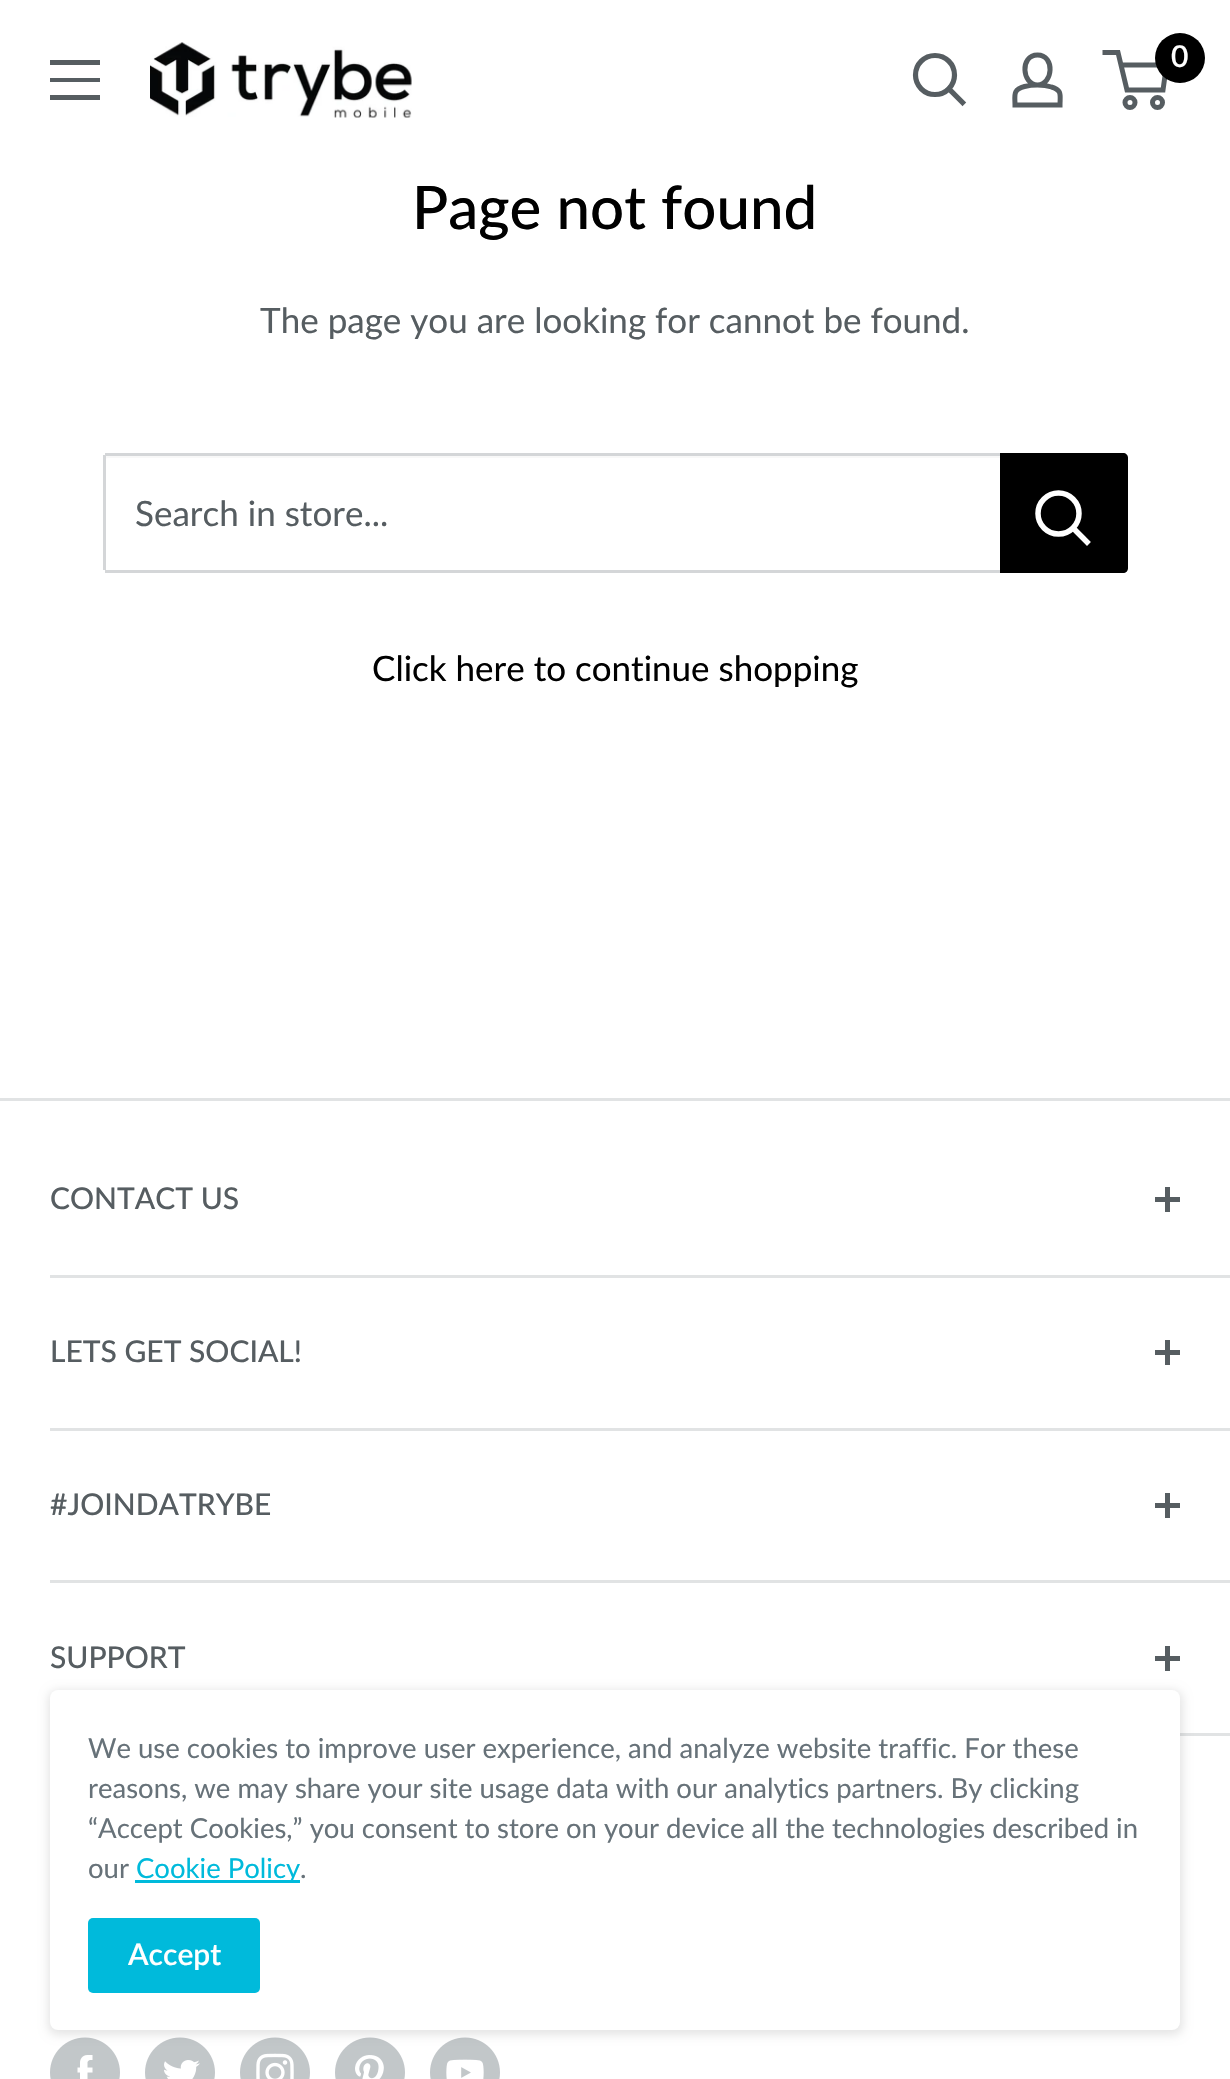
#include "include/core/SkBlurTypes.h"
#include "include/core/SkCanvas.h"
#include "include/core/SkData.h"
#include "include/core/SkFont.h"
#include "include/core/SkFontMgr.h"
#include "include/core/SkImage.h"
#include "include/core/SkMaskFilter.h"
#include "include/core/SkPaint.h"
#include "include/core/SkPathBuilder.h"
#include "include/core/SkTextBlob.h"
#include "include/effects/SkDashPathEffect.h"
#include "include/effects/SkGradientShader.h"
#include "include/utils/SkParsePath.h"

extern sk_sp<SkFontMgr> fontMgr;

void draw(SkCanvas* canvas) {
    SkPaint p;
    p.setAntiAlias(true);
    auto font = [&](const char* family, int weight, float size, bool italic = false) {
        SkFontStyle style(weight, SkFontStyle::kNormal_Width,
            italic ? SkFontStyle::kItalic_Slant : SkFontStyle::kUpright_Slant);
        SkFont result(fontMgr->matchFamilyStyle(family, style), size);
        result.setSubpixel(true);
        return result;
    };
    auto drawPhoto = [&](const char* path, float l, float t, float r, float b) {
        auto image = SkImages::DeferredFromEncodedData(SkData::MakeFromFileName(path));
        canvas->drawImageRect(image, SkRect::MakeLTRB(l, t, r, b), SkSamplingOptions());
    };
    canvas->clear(0xFFFFFFFF);
    drawPhoto("media/1.png", 150, 42, 412, 118);
    p.setStyle(SkPaint::kStroke_Style);
    p.setStrokeWidth(5.2f);
    p.setStrokeCap(SkPaint::kSquare_Cap);
    p.setColor(0xFF565D61);
    canvas->drawPath(SkPathBuilder().moveTo(962.5f, 102.5f).lineTo(949, 89).detach(), p);
    p.setStrokeCap(SkPaint::kButt_Cap);
    canvas->drawCircle(935, 75, 19.5f, p);
    p.setStrokeWidth(5);
    canvas->drawPath(SkPathBuilder().moveTo(1037.5f, 85).cubicTo(1042, 85, 1047, 85.5f, 1051.5f, 87).cubicTo(1062.5f, 90, 1060, 95.5f, 1060, 105).lineTo(1015, 105).cubicTo(1015, 95, 1012.5f, 89.5f, 1024.5f, 86.5f).cubicTo(1028.5f, 85.5f, 1033, 85, 1037.5f, 85).close().moveTo(1037.5f, 85).cubicTo(1022, 85, 1019.5f, 55, 1037.5f, 55).cubicTo(1055.5f, 55, 1053, 85, 1037.5f, 85).close().detach(), p);
    canvas->drawCircle(1130, 102.5f, 5, p);
    canvas->drawCircle(1157.5f, 102.5f, 5, p);
    canvas->drawPath(SkPathBuilder().moveTo(1121, 65).lineTo(1166.5f, 65).lineTo(1163, 90).lineTo(1127, 90).lineTo(1118, 52.5f).lineTo(1102.5f, 52.5f).detach(), p);
    p.setStyle(SkPaint::kFill_Style);
    p.setColor(0xFF000000);
    canvas->drawCircle(1180, 58, 25, p);
    auto font1 = font("Lato", 600, 30);
    p.setColor(0xFFFFFFFF);
    canvas->drawString("0", 1171, 67, font1, p);
    p.setColor(0xFF565D61);
    canvas->drawPath(SkPathBuilder(SkPathFillType::kEvenOdd).moveTo(50, 95).lineTo(100, 95).lineTo(100, 100).lineTo(50, 100).close().moveTo(50, 60).lineTo(100, 60).lineTo(100, 65).lineTo(50, 65).close().moveTo(50, 78).lineTo(100, 78).lineTo(100, 82).lineTo(50, 82).close().detach(), p);
    auto font2 = font("Lato", 500, 60);
    p.setColor(0xFF000000);
    canvas->drawString("Page not found", 412, 229, font2, p);
    auto font3 = font("Lato", 400, 35);
    p.setColor(0xFF565D61);
    canvas->drawString("The page you are looking for cannot be found.", 260, 333, font3, p);
    p.setColor(0xFFF8F8F8);
    canvas->drawPath(SkPathBuilder().moveTo(108, 458).lineTo(1000, 458).lineTo(1000, 455).lineTo(108, 455).cubicTo(105, 455, 105, 458, 105, 460).cubicTo(105, 459, 106, 458, 108, 458).close().detach(), p);
    {
        const struct { float l, t, r, b; SkColor color; } items[] = {
            {105, 453, 1000, 456, 0xFFD4D6D8},
            {105, 570, 1000, 573, 0xFFD4D6D8},
            {103, 455, 106, 570, 0xFFD4D6D8},
        };
        for (auto [l, t, r, b, color] : items) {
            p.setColor(color);
            canvas->drawRect(SkRect::MakeLTRB(l, t, r, b), p);
        }
    }
    p.setColor(0xFF565D61);
    canvas->drawString("Search in store...", 135, 526, font3, p);
    p.setColor(0xFF000000);
    canvas->drawPath(SkPathBuilder().moveTo(1000, 453).lineTo(1123, 453).cubicTo(1126, 453, 1128, 455, 1128, 458).lineTo(1128, 568).cubicTo(1128, 571, 1126, 573, 1123, 573).lineTo(1000, 573).close().detach(), p);
    p.setStyle(SkPaint::kStroke_Style);
    p.setStrokeWidth(5.5f);
    p.setStrokeCap(SkPaint::kSquare_Cap);
    p.setColor(0xFFFFFFFF);
    canvas->drawPath(SkPathBuilder().moveTo(1087, 542).lineTo(1073.5f, 528.5f).detach(), p);
    p.setStrokeCap(SkPaint::kButt_Cap);
    canvas->drawCircle(1058.5f, 513.5f, 20.5f, p);
    p.setStyle(SkPaint::kFill_Style);
    p.setColor(0xFF000000);
    canvas->drawString("Click here to continue shopping", 372, 681, font3, p);
    p.setColor(0xFFE1E3E4);
    canvas->drawRect(SkRect::MakeLTRB(0, 1098, 1230, 1101), p);
    canvas->drawRect(SkRect::MakeLTRB(50, 1275, 1230, 1278), p);
    auto font4 = font("Lato", 500, 30);
    p.setColor(0xFF565D61);
    canvas->drawString("CONTACT US", 50, 1209, font4, p);
    {
        const struct { float l, t, r, b; SkColor color; } items[] = {
            {1165, 1187, 1170, 1212, 0xFF565D61},
            {1155, 1197, 1180, 1202, 0xFF565D61},
            {50, 1428, 1230, 1431, 0xFFE1E3E4},
        };
        for (auto [l, t, r, b, color] : items) {
            p.setColor(color);
            canvas->drawRect(SkRect::MakeLTRB(l, t, r, b), p);
        }
    }
    p.setColor(0xFF565D61);
    canvas->drawString("LETS GET SOCIAL!", 50, 1362, font4, p);
    {
        const struct { float l, t, r, b; SkColor color; } items[] = {
            {1165, 1340, 1170, 1365, 0xFF565D61},
            {1155, 1350, 1180, 1355, 0xFF565D61},
            {50, 1580, 1230, 1583, 0xFFE1E3E4},
        };
        for (auto [l, t, r, b, color] : items) {
            p.setColor(color);
            canvas->drawRect(SkRect::MakeLTRB(l, t, r, b), p);
        }
    }
    p.setColor(0xFF565D61);
    canvas->drawString("#JOINDATRYBE", 50, 1515, font4, p);
    {
        const struct { float l, t, r, b; SkColor color; } items[] = {
            {1165, 1493, 1170, 1518, 0xFF565D61},
            {1155, 1503, 1180, 1508, 0xFF565D61},
            {1180, 1733, 1230, 1736, 0xFFE1E3E4},
        };
        for (auto [l, t, r, b, color] : items) {
            p.setColor(color);
            canvas->drawRect(SkRect::MakeLTRB(l, t, r, b), p);
        }
    }
    p.setColor(0xFF565D61);
    canvas->drawString("SUPPORT", 50, 1668, font4, p);
    canvas->drawRect(SkRect::MakeLTRB(1165, 1646, 1170, 1671), p);
    canvas->drawRect(SkRect::MakeLTRB(1155, 1656, 1180, 1661), p);
    drawPhoto("media/2.png", 50, 2037, 120, 2079);
    drawPhoto("media/3.png", 145, 2037, 215, 2079);
    drawPhoto("media/4.png", 240, 2037, 310, 2079);
    drawPhoto("media/5.png", 335, 2037, 405, 2079);
    drawPhoto("media/6.png", 430, 2037, 500, 2079);
    p.setColor(0x1A000000);
    p.setMaskFilter(SkMaskFilter::MakeBlur(kNormal_SkBlurStyle, 5));
    canvas->drawRoundRect(SkRect::MakeLTRB(48, 1690, 1183, 2035), 10, 10, p);
    p.setMaskFilter(nullptr);
    p.setColor(0xFFFFFFFF);
    canvas->drawRoundRect(SkRect::MakeLTRB(50, 1690, 1180, 2030), 8, 8, p);
    auto font5 = font("Lato", 400, 27.5f);
    p.setColor(0xFF677279);
    {
        const struct { const char* s; float x, y; } items[] = {
            {"We use cookies to improve user experience, and analyze website traffic. For these", 88, 1758},
            {"reasons, we may share your site usage data with our analytics partners. By clicking", 88, 1798},
            {"“Accept Cookies,” you consent to store on your device all the technologies described in", 88, 1838},
            {"our", 88, 1878},
        };
        for (auto [s, x, y] : items) {
            canvas->drawString(s, x, y, font5, p);
        }
    }
    p.setColor(0xFF00BADB);
    canvas->drawRect(SkRect::MakeLTRB(135, 1880, 300, 1883), p);
    canvas->drawString("Cookie Policy", 136, 1878, font5, p);
    p.setColor(0xFF677279);
    canvas->drawString(".", 300, 1878, font5, p);
    p.setColor(0xFF00BADB);
    canvas->drawRoundRect(SkRect::MakeLTRB(88, 1918, 260, 1993), 5, 5, p);
    p.setColor(0xFFFFFFFF);
    canvas->drawString("Accept", 128, 1965, font1, p);
}
